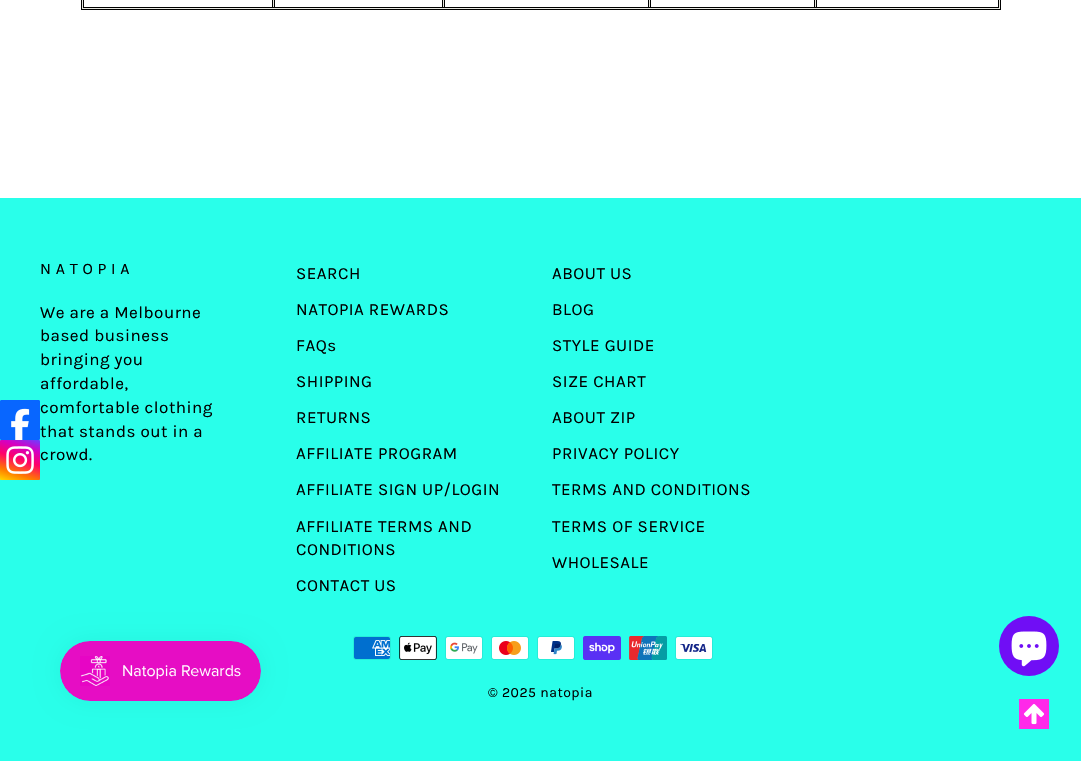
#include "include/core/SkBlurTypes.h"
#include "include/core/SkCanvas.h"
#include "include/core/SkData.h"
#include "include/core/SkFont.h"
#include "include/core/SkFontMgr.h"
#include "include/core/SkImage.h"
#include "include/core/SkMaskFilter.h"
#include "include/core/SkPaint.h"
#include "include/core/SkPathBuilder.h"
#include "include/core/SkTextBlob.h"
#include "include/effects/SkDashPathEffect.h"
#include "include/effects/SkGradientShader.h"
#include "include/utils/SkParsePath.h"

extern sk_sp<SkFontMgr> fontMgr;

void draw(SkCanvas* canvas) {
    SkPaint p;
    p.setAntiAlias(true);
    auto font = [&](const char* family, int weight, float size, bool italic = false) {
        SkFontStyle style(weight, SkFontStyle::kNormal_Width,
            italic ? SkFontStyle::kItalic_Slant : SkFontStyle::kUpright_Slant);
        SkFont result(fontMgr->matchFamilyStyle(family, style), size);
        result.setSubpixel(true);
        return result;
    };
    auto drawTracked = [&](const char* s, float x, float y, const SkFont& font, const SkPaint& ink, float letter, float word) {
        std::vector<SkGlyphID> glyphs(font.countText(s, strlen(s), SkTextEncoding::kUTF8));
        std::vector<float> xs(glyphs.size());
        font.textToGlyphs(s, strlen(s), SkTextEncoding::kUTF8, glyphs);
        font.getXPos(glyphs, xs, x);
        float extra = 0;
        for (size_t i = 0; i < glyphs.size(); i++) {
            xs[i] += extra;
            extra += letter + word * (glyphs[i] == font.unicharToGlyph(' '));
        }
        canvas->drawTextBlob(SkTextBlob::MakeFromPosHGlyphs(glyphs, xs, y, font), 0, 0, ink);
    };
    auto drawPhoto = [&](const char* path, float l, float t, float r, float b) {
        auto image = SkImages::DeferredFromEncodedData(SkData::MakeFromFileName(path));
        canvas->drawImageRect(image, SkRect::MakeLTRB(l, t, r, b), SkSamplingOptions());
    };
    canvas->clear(0xFFFFFFFF);
    p.setColor(0xFF29FFEA);
    canvas->drawRect(SkRect::MakeLTRB(0, 198, 1081, 761), p);
    drawPhoto("media/1.png", 0, 400, 40, 440);
    drawPhoto("media/2.png", 0, 440, 40, 480);
    p.setColor(0xFFE8E8E1);
    canvas->drawRect(SkRect::MakeLTRB(81.5f, -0.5f, 1000.5f, 9.5f), p);
    p.setStyle(SkPaint::kStroke_Style);
    p.setStrokeWidth(1);
    p.setColor(0xFF000000);
    canvas->drawRect(SkRect::MakeLTRB(81.5f, -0.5f, 1000.5f, 9.5f), p);
    canvas->drawRect(SkRect::MakeLTRB(83.5f, -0.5f, 998.5f, 7.5f), p);
    p.setStyle(SkPaint::kFill_Style);
    p.setColor(0xFFFFFFFF);
    canvas->drawRect(SkRect::MakeLTRB(83.5f, -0.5f, 272.5f, 7.5f), p);
    p.setStyle(SkPaint::kStroke_Style);
    p.setColor(0xFF000000);
    canvas->drawRect(SkRect::MakeLTRB(83.5f, -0.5f, 272.5f, 7.5f), p);
    p.setStyle(SkPaint::kFill_Style);
    p.setColor(0xFFFFFFFF);
    canvas->drawRect(SkRect::MakeLTRB(274.5f, -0.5f, 442.5f, 7.5f), p);
    p.setStyle(SkPaint::kStroke_Style);
    p.setColor(0xFF000000);
    canvas->drawRect(SkRect::MakeLTRB(274.5f, -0.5f, 442.5f, 7.5f), p);
    p.setStyle(SkPaint::kFill_Style);
    p.setColor(0xFFFFFFFF);
    canvas->drawRect(SkRect::MakeLTRB(444.5f, -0.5f, 648.5f, 7.5f), p);
    p.setStyle(SkPaint::kStroke_Style);
    p.setColor(0xFF000000);
    canvas->drawRect(SkRect::MakeLTRB(444.5f, -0.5f, 648.5f, 7.5f), p);
    p.setStyle(SkPaint::kFill_Style);
    p.setColor(0xFFFFFFFF);
    canvas->drawRect(SkRect::MakeLTRB(650.5f, -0.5f, 814.5f, 7.5f), p);
    p.setStyle(SkPaint::kStroke_Style);
    p.setColor(0xFF000000);
    canvas->drawRect(SkRect::MakeLTRB(650.5f, -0.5f, 814.5f, 7.5f), p);
    p.setStyle(SkPaint::kFill_Style);
    p.setColor(0xFFFFFFFF);
    canvas->drawRect(SkRect::MakeLTRB(816.5f, -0.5f, 998.5f, 7.5f), p);
    p.setStyle(SkPaint::kStroke_Style);
    p.setColor(0xFF000000);
    canvas->drawRect(SkRect::MakeLTRB(816.5f, -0.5f, 998.5f, 7.5f), p);
    auto font1 = font("Karla", 400, 16);
    p.setStyle(SkPaint::kFill_Style);
    drawTracked("NATOPIA", 40, 274, font1, p, 4.75f, 0);
    auto font2 = font("Karla", 400, 17);
    {
        const struct { const char* s; float x, y; } items[] = {
            {"We are a Melbourne", 40, 318},
            {"based business", 40, 341},
            {"bringing you", 40, 365},
            {"affordable,", 40, 389},
            {"comfortable clothing", 40, 413},
            {"that stands out in a", 40, 437},
            {"crowd.", 40, 460},
            {"SEARCH", 296, 279},
            {"NATOPIA REWARDS", 296, 315},
            {"FAQs", 296, 351},
            {"SHIPPING", 296, 387},
            {"RETURNS", 296, 423},
            {"AFFILIATE PROGRAM", 296, 459},
            {"AFFILIATE SIGN UP/LOGIN", 296, 495},
            {"AFFILIATE TERMS AND", 296, 532},
            {"CONDITIONS", 296, 555},
            {"CONTACT US", 296, 591},
            {"ABOUT US", 552, 279},
            {"BLOG", 552, 315},
            {"STYLE GUIDE", 552, 351},
            {"SIZE CHART", 552, 387},
            {"ABOUT ZIP", 552, 423},
            {"PRIVACY POLICY", 552, 459},
            {"TERMS AND CONDITIONS", 552, 495},
            {"TERMS OF SERVICE", 552, 532},
            {"WHOLESALE", 552, 568},
        };
        for (auto [s, x, y] : items) {
            drawTracked(s, x, y, font2, p, 0.5f, 0);
        }
    }
    drawPhoto("media/3.png", 353, 636, 391, 660);
    drawPhoto("media/4.png", 399, 636, 437, 660);
    drawPhoto("media/5.png", 445, 636, 483, 660);
    drawPhoto("media/6.png", 491, 636, 529, 660);
    drawPhoto("media/7.png", 537, 636, 575, 660);
    drawPhoto("media/8.png", 583, 636, 621, 660);
    drawPhoto("media/9.png", 629, 636, 667, 660);
    drawPhoto("media/10.png", 675, 636, 713, 660);
    auto font3 = font("Karla", 400, 14);
    drawTracked("© 2025 natopia", 488, 697, font3, p, 0.5f, 0);
    p.setColor(0x0D000000);
    p.setMaskFilter(SkMaskFilter::MakeBlur(kNormal_SkBlurStyle, 12.5f));
    canvas->drawRoundRect(SkRect::MakeLTRB(60, 641, 261, 701), 30, 30, p);
    p.setMaskFilter(nullptr);
    drawPhoto("media/11.png", 60, 641, 261, 701);
    p.setColor(0xFF700EF5);
    canvas->drawCircle(1029, 646, 30, p);
    drawPhoto("media/12.png", 1011, 631, 1047, 667);
    drawPhoto("media/13.png", 1019, 699, 1049, 729);
}
